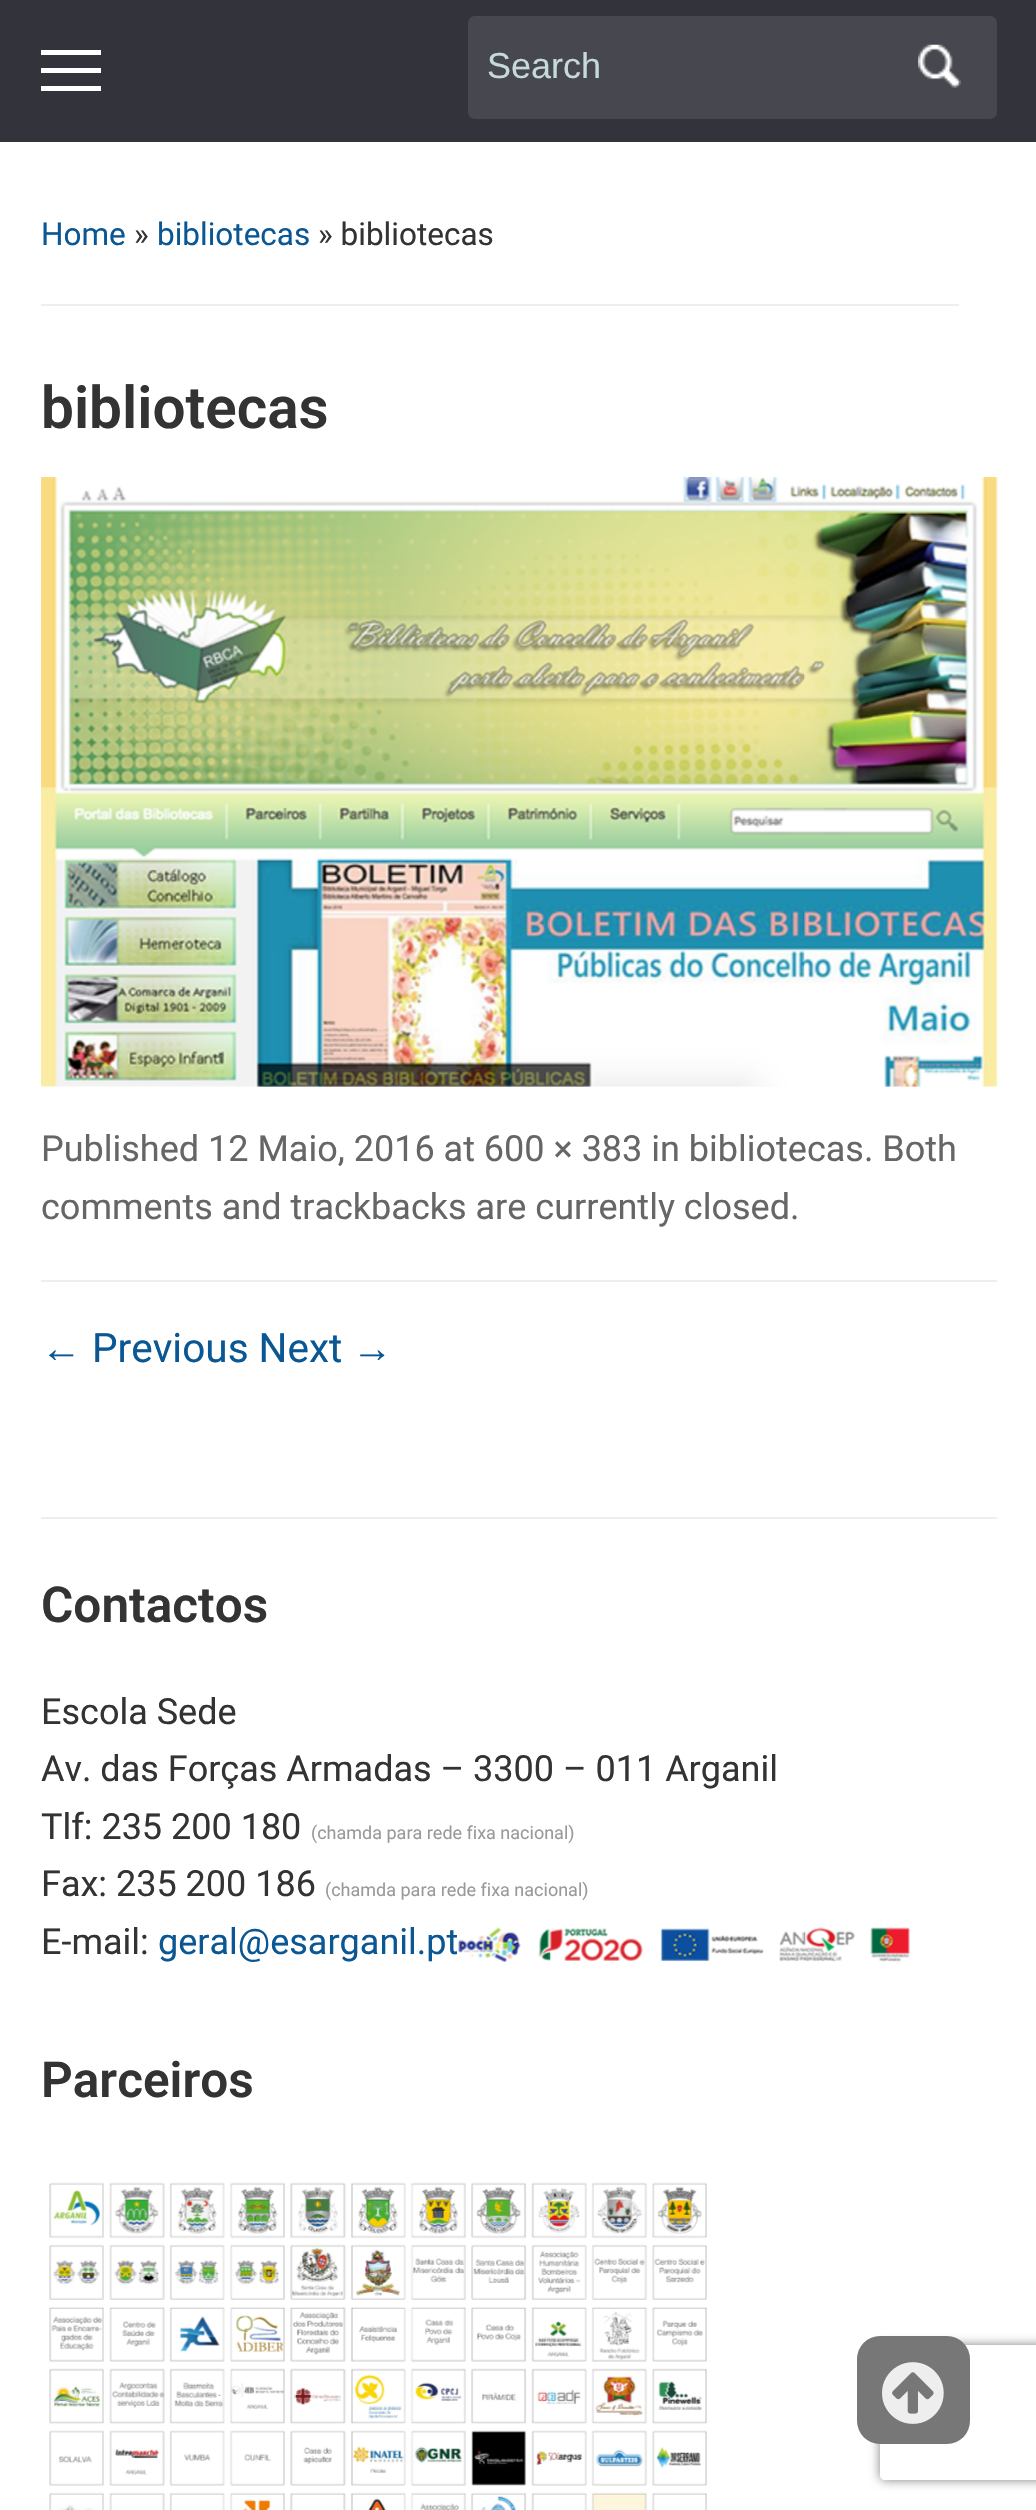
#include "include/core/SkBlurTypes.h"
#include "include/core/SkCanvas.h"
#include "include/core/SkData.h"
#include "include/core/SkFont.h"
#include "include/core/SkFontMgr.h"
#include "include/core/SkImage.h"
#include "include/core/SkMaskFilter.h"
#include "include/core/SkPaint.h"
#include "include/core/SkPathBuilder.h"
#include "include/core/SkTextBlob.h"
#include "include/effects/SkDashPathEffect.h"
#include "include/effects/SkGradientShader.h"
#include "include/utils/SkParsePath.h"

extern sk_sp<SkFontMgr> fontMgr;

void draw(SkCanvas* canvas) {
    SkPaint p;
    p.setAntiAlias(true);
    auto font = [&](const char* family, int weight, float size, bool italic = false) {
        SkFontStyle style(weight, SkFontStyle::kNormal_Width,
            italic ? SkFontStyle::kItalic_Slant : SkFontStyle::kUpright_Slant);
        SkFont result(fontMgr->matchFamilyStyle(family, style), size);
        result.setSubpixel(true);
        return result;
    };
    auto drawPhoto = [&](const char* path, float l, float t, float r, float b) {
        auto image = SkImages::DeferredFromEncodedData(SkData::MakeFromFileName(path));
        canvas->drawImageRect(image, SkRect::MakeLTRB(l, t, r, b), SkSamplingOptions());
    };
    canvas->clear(0xFFFFFFFF);
    {
        const struct { float l, t, r, b; SkColor color; } items[] = {
            {0, 0, 1036, 142, 0xFF33333C},
            {41, 50, 101, 55, 0xFFFFFFFF},
            {41, 68, 101, 73, 0xFFFFFFFF},
            {41, 86, 101, 91, 0xFFFFFFFF},
        };
        for (auto [l, t, r, b, color] : items) {
            p.setColor(color);
            canvas->drawRect(SkRect::MakeLTRB(l, t, r, b), p);
        }
    }
    p.setColor(0xFF474750);
    canvas->drawRoundRect(SkRect::MakeLTRB(468, 16, 997, 119), 7, 7, p);
    auto font1 = font("Liberation Sans", 400, 36);
    p.setColor(0xFFC6D9DB);
    canvas->drawString("Search", 487, 78, font1, p);
    drawPhoto("media/1.png", 918, 44, 961, 88);
    p.setColor(0xFFEEEEEE);
    canvas->drawRect(SkRect::MakeLTRB(41, 304, 959, 306), p);
    auto font2 = font("Roboto", 400, 31.5f);
    p.setColor(0xFF0A5794);
    canvas->drawString("Home", 41, 245, font2, p);
    p.setColor(0xFF333333);
    canvas->drawString("»", 134, 245, font2, p);
    p.setColor(0xFF0A5794);
    canvas->drawString("bibliotecas", 157, 245, font2, p);
    p.setColor(0xFF333333);
    canvas->drawString("» bibliotecas", 318, 245, font2, p);
    auto font3 = font("Roboto", 600, 58.5f);
    canvas->drawString("bibliotecas", 41, 428, font3, p);
    drawPhoto("media/2.png", 41, 477, 998, 1087);
    p.setColor(0xFFEEEEEE);
    canvas->drawRect(SkRect::MakeLTRB(41, 1280, 997, 1282), p);
    auto font4 = font("Roboto", 400, 36);
    p.setColor(0xFF666666);
    canvas->drawString("Published 12 Maio, 2016 at 600 × 383 in bibliotecas. Both", 41, 1161, font4, p);
    canvas->drawString("comments and trackbacks are currently closed.", 41, 1219, font4, p);
    auto font5 = font("Liberation Sans", 400, 40.5f);
    p.setColor(0xFF0A5794);
    canvas->drawString("←", 41, 1362, font5, p);
    auto font6 = font("Roboto", 400, 40.5f);
    canvas->drawString("Previous Next", 92, 1362, font6, p);
    canvas->drawString("→", 352, 1362, font5, p);
    p.setColor(0xFFEEEEEE);
    canvas->drawRect(SkRect::MakeLTRB(41, 1517, 997, 1519), p);
    auto font7 = font("Roboto", 600, 49.5f);
    p.setColor(0xFF333333);
    canvas->drawString("Contactos", 41, 1622, font7, p);
    {
        const struct { const char* s; float x, y; } items[] = {
            {"Escola Sede", 41, 1724},
            {"Av. das Forças Armadas – 3300 – 011 Arganil", 41, 1781},
            {"Tlf: 235 200 180", 41, 1839},
        };
        for (auto [s, x, y] : items) {
            canvas->drawString(s, x, y, font4, p);
        }
    }
    auto font8 = font("Roboto", 400, 18);
    p.setColor(0xFF999999);
    canvas->drawString("(chamda para rede fixa nacional)", 311, 1839, font8, p);
    p.setColor(0xFF333333);
    canvas->drawString("Fax: 235 200 186", 41, 1896, font4, p);
    p.setColor(0xFF999999);
    canvas->drawString("(chamda para rede fixa nacional)", 325, 1896, font8, p);
    p.setColor(0xFF333333);
    canvas->drawString("E-mail:", 41, 1954, font4, p);
    p.setColor(0xFF0A5794);
    canvas->drawString("geral@esarganil.pt", 158, 1954, font4, p);
    drawPhoto("media/3.png", 458, 1927, 910, 1962);
    p.setColor(0xFF333333);
    canvas->drawString("Parceiros", 41, 2097, font7, p);
    drawPhoto("media/4.png", 49, 2182, 707, 2510);
    canvas->save();
    canvas->clipPath(SkPathBuilder(SkPathFillType::kEvenOdd).moveTo(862, 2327).lineTo(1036, 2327).lineTo(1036, 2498).lineTo(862, 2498).close().moveTo(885, 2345).lineTo(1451, 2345).cubicTo(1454, 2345, 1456, 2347, 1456, 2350).lineTo(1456, 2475).cubicTo(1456, 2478, 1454, 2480, 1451, 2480).lineTo(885, 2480).cubicTo(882, 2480, 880, 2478, 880, 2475).lineTo(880, 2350).cubicTo(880, 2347, 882, 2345, 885, 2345).close().detach(), true);
    p.setColor(0xFF808080);
    p.setMaskFilter(SkMaskFilter::MakeBlur(kNormal_SkBlurStyle, 5.5f));
    canvas->drawRoundRect(SkRect::MakeLTRB(880, 2345, 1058, 2480), 5, 5, p);
    p.setMaskFilter(nullptr);
    canvas->restore();
    p.setColor(0xFF777777);
    canvas->drawRoundRect(SkRect::MakeLTRB(857, 2336, 970, 2444), 23, 23, p);
    drawPhoto("media/5.png", 882, 2362, 944, 2424);
}
